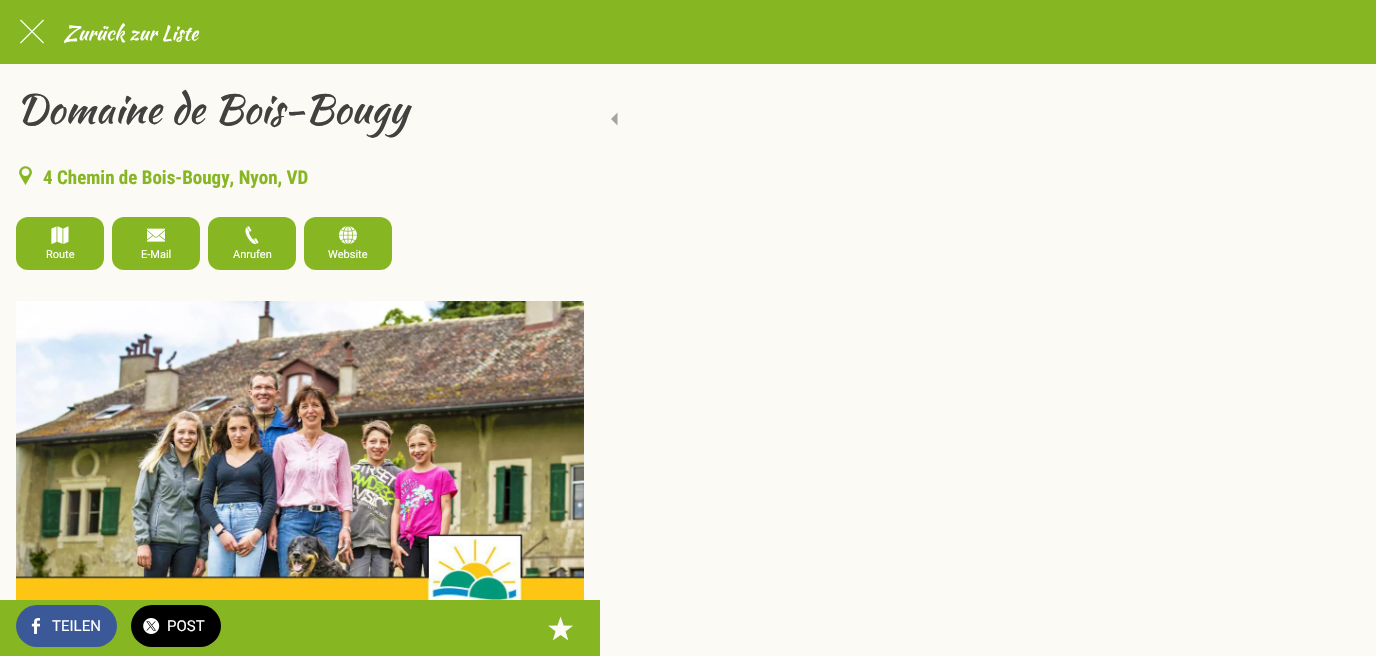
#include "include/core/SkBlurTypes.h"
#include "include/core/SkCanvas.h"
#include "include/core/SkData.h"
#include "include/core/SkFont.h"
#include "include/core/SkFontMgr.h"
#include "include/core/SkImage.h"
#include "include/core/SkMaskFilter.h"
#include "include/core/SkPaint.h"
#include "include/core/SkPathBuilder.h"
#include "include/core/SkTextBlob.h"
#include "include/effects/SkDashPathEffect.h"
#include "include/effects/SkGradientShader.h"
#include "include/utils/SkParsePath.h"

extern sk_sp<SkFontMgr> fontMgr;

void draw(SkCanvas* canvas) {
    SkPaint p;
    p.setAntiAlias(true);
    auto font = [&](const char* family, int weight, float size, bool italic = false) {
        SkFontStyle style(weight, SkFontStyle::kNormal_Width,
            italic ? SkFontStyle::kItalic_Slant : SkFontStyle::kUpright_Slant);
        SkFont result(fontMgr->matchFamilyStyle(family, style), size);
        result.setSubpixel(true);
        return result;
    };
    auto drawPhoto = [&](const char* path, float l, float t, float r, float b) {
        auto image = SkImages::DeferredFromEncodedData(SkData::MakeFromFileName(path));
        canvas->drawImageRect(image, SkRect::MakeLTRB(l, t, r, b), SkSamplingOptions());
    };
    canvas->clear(0xFFFCFAF4);
    p.setColor(0xFF86B723);
    canvas->drawRect(SkRect::MakeLTRB(0, 0, 1376, 64), p);
    drawPhoto("media/1.png", 20, 19, 44, 44);
    auto font1 = font("Kaushan Script", 400, 20);
    p.setColor(0xFFFFFFFF);
    canvas->drawString("Zurück zur Liste", 64, 40, font1, p);
    auto font2 = font("Kaushan Script", 400, 40);
    p.setColor(0xFF43413F);
    canvas->drawString("Domaine de Bois-Bougy", 16, 123, font2, p);
    drawPhoto("media/2.png", 19, 166, 32, 185);
    auto font3 = font("Roboto Condensed", 700, 19);
    p.setColor(0xFF86B723);
    canvas->drawString("4 Chemin de Bois-Bougy, Nyon, VD", 43, 184, font3, p);
    canvas->drawRoundRect(SkRect::MakeLTRB(16, 217, 104, 270), 12, 12, p);
    drawPhoto("media/3.png", 51, 226, 69, 244);
    auto font4 = font("Roboto", 400, 11);
    p.setColor(0xFFFFFFFF);
    canvas->drawString("Route", 46, 258, font4, p);
    p.setColor(0xFF86B723);
    canvas->drawRoundRect(SkRect::MakeLTRB(112, 217, 200, 270), 12, 12, p);
    drawPhoto("media/4.png", 147, 228, 165, 242);
    p.setColor(0xFFFFFFFF);
    canvas->drawString("E-Mail", 141, 258, font4, p);
    p.setColor(0xFF86B723);
    canvas->drawRoundRect(SkRect::MakeLTRB(208, 217, 296, 270), 12, 12, p);
    drawPhoto("media/5.png", 245, 226, 259, 245);
    p.setColor(0xFFFFFFFF);
    canvas->drawString("Anrufen", 233, 258, font4, p);
    p.setColor(0xFF86B723);
    canvas->drawRoundRect(SkRect::MakeLTRB(304, 217, 392, 270), 12, 12, p);
    drawPhoto("media/6.png", 339, 226, 357, 244);
    p.setColor(0xFFFFFFFF);
    canvas->drawString("Website", 328, 258, font4, p);
    drawPhoto("media/7.png", 16, 301, 584, 600);
    p.setColor(0xFF86B723);
    canvas->drawRect(SkRect::MakeLTRB(0, 600, 600, 656), p);
    p.setColor(0xFF3B5999);
    canvas->drawRoundRect(SkRect::MakeLTRB(16, 605, 117, 647), 21, 21, p);
    drawPhoto("media/8.png", 31, 618, 41, 634);
    auto font5 = font("Roboto", 400, 15);
    p.setColor(0xFFFFFFFF);
    canvas->drawString("TEILEN", 52, 631, font5, p);
    p.setColor(0xFF000000);
    canvas->drawRoundRect(SkRect::MakeLTRB(131, 605, 221, 647), 21, 21, p);
    drawPhoto("media/9.png", 143, 618, 160, 634);
    p.setColor(0xFFFFFFFF);
    canvas->drawString("POST", 167, 631, font5, p);
    drawPhoto("media/10.png", 548, 616, 573, 641);
    p.setColor(0xFFA4A4A1);
    canvas->drawPath(SkPathBuilder().moveTo(617.5f, 112.5f).lineTo(611, 119).lineTo(617.5f, 125.5f).lineTo(617.5f, 113).close().detach(), p);
}
